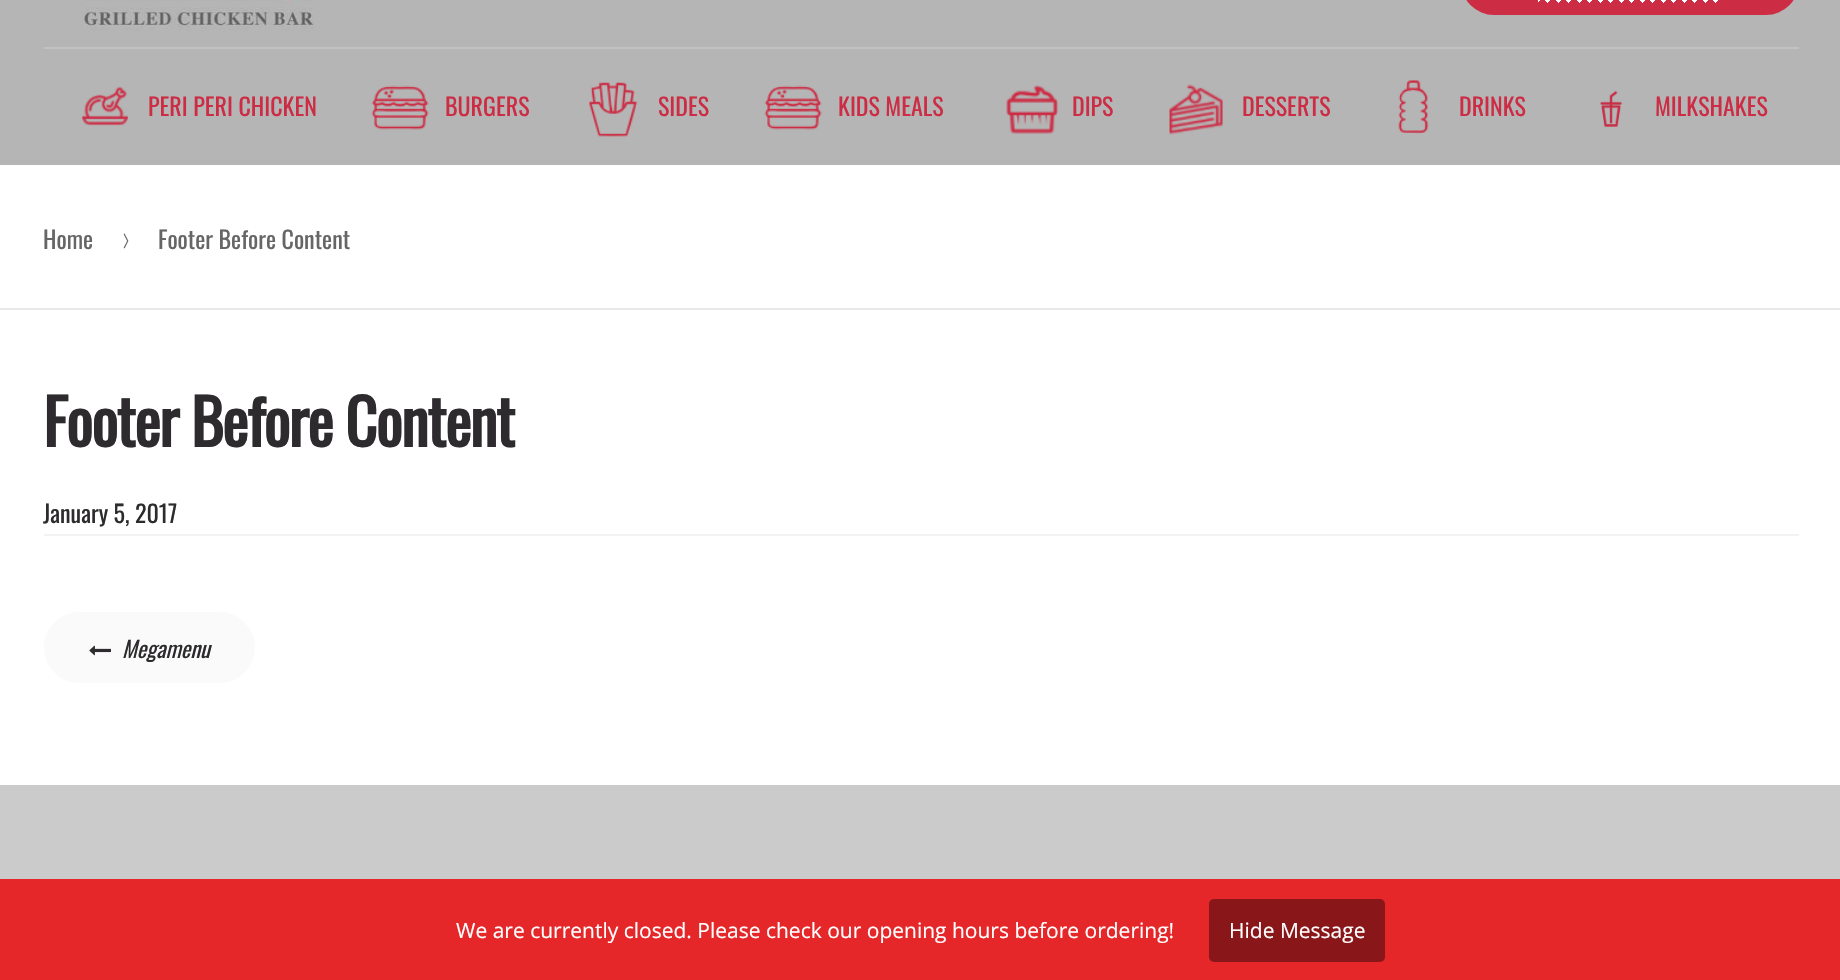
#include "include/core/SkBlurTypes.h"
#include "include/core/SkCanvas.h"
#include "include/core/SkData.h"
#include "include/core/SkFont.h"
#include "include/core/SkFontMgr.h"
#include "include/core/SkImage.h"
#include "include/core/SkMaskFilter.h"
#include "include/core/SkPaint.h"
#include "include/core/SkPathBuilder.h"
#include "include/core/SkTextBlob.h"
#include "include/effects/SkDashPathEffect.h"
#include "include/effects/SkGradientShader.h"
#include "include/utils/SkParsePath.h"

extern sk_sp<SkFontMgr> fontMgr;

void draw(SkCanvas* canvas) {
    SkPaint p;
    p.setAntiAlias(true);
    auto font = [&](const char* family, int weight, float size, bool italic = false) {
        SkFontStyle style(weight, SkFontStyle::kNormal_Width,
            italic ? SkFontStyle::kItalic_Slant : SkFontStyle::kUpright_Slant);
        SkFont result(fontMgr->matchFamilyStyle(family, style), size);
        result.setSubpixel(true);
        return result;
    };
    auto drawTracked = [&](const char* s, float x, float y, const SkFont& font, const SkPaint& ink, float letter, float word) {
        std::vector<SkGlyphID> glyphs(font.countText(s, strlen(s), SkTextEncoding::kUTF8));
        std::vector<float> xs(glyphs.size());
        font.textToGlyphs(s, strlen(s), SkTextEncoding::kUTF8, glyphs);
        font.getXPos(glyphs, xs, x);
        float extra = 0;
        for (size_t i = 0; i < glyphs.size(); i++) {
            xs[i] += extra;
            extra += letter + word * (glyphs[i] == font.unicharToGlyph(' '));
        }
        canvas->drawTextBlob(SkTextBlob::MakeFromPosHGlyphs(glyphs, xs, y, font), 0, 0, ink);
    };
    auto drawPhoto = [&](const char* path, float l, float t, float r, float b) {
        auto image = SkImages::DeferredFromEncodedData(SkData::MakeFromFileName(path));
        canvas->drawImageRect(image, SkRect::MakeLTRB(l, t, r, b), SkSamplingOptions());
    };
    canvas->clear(0xFFFFFFFF);
    p.setColor(0xFFB5B5B5);
    canvas->drawRect(SkRect::MakeLTRB(0, 0, 1840, 165), p);
    drawPhoto("media/1.png", 84, 0, 314, 31);
    p.setColor(0xFFCC2C44);
    canvas->drawRoundRect(SkRect::MakeLTRB(1461, -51, 1799, 15), 51, 51, p);
    {
        const SkColor colors[] = {0xFFCC2C44, 0xFFFFFFFF};
        const float stops[] = {0.91f, 0.91f};
        const SkPoint ends[] = {{1562, 50}, {1523, 10}};
        p.setShader(SkGradientShader::MakeLinear(ends, colors, stops, 2, SkTileMode::kClamp));
        p.setAlpha(255);
    }
    canvas->drawRect(SkRect::MakeLTRB(1538, 0, 1540, 2), p);
    {
        const SkColor colors[] = {0xFFCC2C44, 0xFFFFFFFF};
        const float stops[] = {0.91f, 0.91f};
        const SkPoint ends[] = {{1573, 50}, {1533, 10}};
        p.setShader(SkGradientShader::MakeLinear(ends, colors, stops, 2, SkTileMode::kClamp));
        p.setAlpha(255);
    }
    canvas->drawRect(SkRect::MakeLTRB(1548, 0, 1550, 2), p);
    {
        const SkColor colors[] = {0xFFCC2C44, 0xFFFFFFFF};
        const float stops[] = {0.91f, 0.91f};
        const SkPoint ends[] = {{1583, 50}, {1544, 10}};
        p.setShader(SkGradientShader::MakeLinear(ends, colors, stops, 2, SkTileMode::kClamp));
        p.setAlpha(255);
    }
    canvas->drawRect(SkRect::MakeLTRB(1559, 0, 1561, 2), p);
    {
        const SkColor colors[] = {0xFFCC2C44, 0xFFFFFFFF};
        const float stops[] = {0.91f, 0.91f};
        const SkPoint ends[] = {{1594, 50}, {1554, 10}};
        p.setShader(SkGradientShader::MakeLinear(ends, colors, stops, 2, SkTileMode::kClamp));
        p.setAlpha(255);
    }
    canvas->drawRect(SkRect::MakeLTRB(1569, 0, 1571, 2), p);
    {
        const SkColor colors[] = {0xFFCC2C44, 0xFFFFFFFF};
        const float stops[] = {0.91f, 0.91f};
        const SkPoint ends[] = {{1604, 50}, {1565, 10}};
        p.setShader(SkGradientShader::MakeLinear(ends, colors, stops, 2, SkTileMode::kClamp));
        p.setAlpha(255);
    }
    canvas->drawRect(SkRect::MakeLTRB(1580, 0, 1582, 2), p);
    {
        const SkColor colors[] = {0xFFCC2C44, 0xFFFFFFFF};
        const float stops[] = {0.91f, 0.91f};
        const SkPoint ends[] = {{1615, 50}, {1575, 10}};
        p.setShader(SkGradientShader::MakeLinear(ends, colors, stops, 2, SkTileMode::kClamp));
        p.setAlpha(255);
    }
    canvas->drawRect(SkRect::MakeLTRB(1590, 0, 1592, 2), p);
    {
        const SkColor colors[] = {0xFFCC2C44, 0xFFFFFFFF};
        const float stops[] = {0.91f, 0.91f};
        const SkPoint ends[] = {{1625, 50}, {1586, 10}};
        p.setShader(SkGradientShader::MakeLinear(ends, colors, stops, 2, SkTileMode::kClamp));
        p.setAlpha(255);
    }
    canvas->drawRect(SkRect::MakeLTRB(1601, 0, 1603, 2), p);
    {
        const SkColor colors[] = {0xFFCC2C44, 0xFFFFFFFF};
        const float stops[] = {0.91f, 0.91f};
        const SkPoint ends[] = {{1636, 50}, {1596, 10}};
        p.setShader(SkGradientShader::MakeLinear(ends, colors, stops, 2, SkTileMode::kClamp));
        p.setAlpha(255);
    }
    canvas->drawRect(SkRect::MakeLTRB(1611, 0, 1613, 2), p);
    {
        const SkColor colors[] = {0xFFCC2C44, 0xFFFFFFFF};
        const float stops[] = {0.91f, 0.91f};
        const SkPoint ends[] = {{1646, 50}, {1607, 10}};
        p.setShader(SkGradientShader::MakeLinear(ends, colors, stops, 2, SkTileMode::kClamp));
        p.setAlpha(255);
    }
    canvas->drawRect(SkRect::MakeLTRB(1622, 0, 1624, 2), p);
    {
        const SkColor colors[] = {0xFFCC2C44, 0xFFFFFFFF};
        const float stops[] = {0.91f, 0.91f};
        const SkPoint ends[] = {{1657, 50}, {1617, 10}};
        p.setShader(SkGradientShader::MakeLinear(ends, colors, stops, 2, SkTileMode::kClamp));
        p.setAlpha(255);
    }
    canvas->drawRect(SkRect::MakeLTRB(1632, 0, 1634, 2), p);
    {
        const SkColor colors[] = {0xFFCC2C44, 0xFFFFFFFF};
        const float stops[] = {0.91f, 0.91f};
        const SkPoint ends[] = {{1667, 50}, {1628, 10}};
        p.setShader(SkGradientShader::MakeLinear(ends, colors, stops, 2, SkTileMode::kClamp));
        p.setAlpha(255);
    }
    canvas->drawRect(SkRect::MakeLTRB(1643, 0, 1645, 2), p);
    {
        const SkColor colors[] = {0xFFCC2C44, 0xFFFFFFFF};
        const float stops[] = {0.91f, 0.91f};
        const SkPoint ends[] = {{1678, 50}, {1638, 10}};
        p.setShader(SkGradientShader::MakeLinear(ends, colors, stops, 2, SkTileMode::kClamp));
        p.setAlpha(255);
    }
    canvas->drawRect(SkRect::MakeLTRB(1653, 0, 1655, 2), p);
    {
        const SkColor colors[] = {0xFFCC2C44, 0xFFFFFFFF};
        const float stops[] = {0.91f, 0.91f};
        const SkPoint ends[] = {{1688, 50}, {1649, 10}};
        p.setShader(SkGradientShader::MakeLinear(ends, colors, stops, 2, SkTileMode::kClamp));
        p.setAlpha(255);
    }
    canvas->drawRect(SkRect::MakeLTRB(1664, 0, 1666, 2), p);
    {
        const SkColor colors[] = {0xFFCC2C44, 0xFFFFFFFF};
        const float stops[] = {0.91f, 0.91f};
        const SkPoint ends[] = {{1699, 50}, {1659, 10}};
        p.setShader(SkGradientShader::MakeLinear(ends, colors, stops, 2, SkTileMode::kClamp));
        p.setAlpha(255);
    }
    canvas->drawRect(SkRect::MakeLTRB(1674, 0, 1676, 2), p);
    {
        const SkColor colors[] = {0xFFCC2C44, 0xFFFFFFFF};
        const float stops[] = {0.91f, 0.91f};
        const SkPoint ends[] = {{1709, 50}, {1670, 10}};
        p.setShader(SkGradientShader::MakeLinear(ends, colors, stops, 2, SkTileMode::kClamp));
        p.setAlpha(255);
    }
    canvas->drawRect(SkRect::MakeLTRB(1685, 0, 1687, 2), p);
    {
        const SkColor colors[] = {0xFFCC2C44, 0xFFFFFFFF};
        const float stops[] = {0.91f, 0.91f};
        const SkPoint ends[] = {{1720, 50}, {1680, 10}};
        p.setShader(SkGradientShader::MakeLinear(ends, colors, stops, 2, SkTileMode::kClamp));
        p.setAlpha(255);
    }
    canvas->drawRect(SkRect::MakeLTRB(1695, 0, 1697, 2), p);
    {
        const SkColor colors[] = {0xFFCC2C44, 0xFFFFFFFF};
        const float stops[] = {0.91f, 0.91f};
        const SkPoint ends[] = {{1730, 50}, {1691, 10}};
        p.setShader(SkGradientShader::MakeLinear(ends, colors, stops, 2, SkTileMode::kClamp));
        p.setAlpha(255);
    }
    canvas->drawRect(SkRect::MakeLTRB(1706, 0, 1708, 2), p);
    {
        const SkColor colors[] = {0xFFCC2C44, 0xFFFFFFFF};
        const float stops[] = {0.91f, 0.91f};
        const SkPoint ends[] = {{1741, 50}, {1701, 10}};
        p.setShader(SkGradientShader::MakeLinear(ends, colors, stops, 2, SkTileMode::kClamp));
        p.setAlpha(255);
    }
    canvas->drawRect(SkRect::MakeLTRB(1716, 0, 1718, 2), p);
    {
        const SkColor colors[] = {0x00FFFFFF, 0xFFFFFFFF};
        const float stops[] = {0.91f, 0.91f};
        const SkPoint ends[] = {{1523, 50}, {1562, 10}};
        p.setShader(SkGradientShader::MakeLinear(ends, colors, stops, 2, SkTileMode::kClamp));
        p.setAlpha(255);
    }
    canvas->drawRect(SkRect::MakeLTRB(1545, 0, 1548, 3), p);
    {
        const SkColor colors[] = {0x00FFFFFF, 0xFFFFFFFF};
        const float stops[] = {0.91f, 0.91f};
        const SkPoint ends[] = {{1533, 50}, {1573, 10}};
        p.setShader(SkGradientShader::MakeLinear(ends, colors, stops, 2, SkTileMode::kClamp));
        p.setAlpha(255);
    }
    canvas->drawRect(SkRect::MakeLTRB(1556, 0, 1559, 3), p);
    {
        const SkColor colors[] = {0x00FFFFFF, 0xFFFFFFFF};
        const float stops[] = {0.91f, 0.91f};
        const SkPoint ends[] = {{1544, 50}, {1583, 10}};
        p.setShader(SkGradientShader::MakeLinear(ends, colors, stops, 2, SkTileMode::kClamp));
        p.setAlpha(255);
    }
    canvas->drawRect(SkRect::MakeLTRB(1566, 0, 1569, 3), p);
    {
        const SkColor colors[] = {0x00FFFFFF, 0xFFFFFFFF};
        const float stops[] = {0.91f, 0.91f};
        const SkPoint ends[] = {{1554, 50}, {1594, 10}};
        p.setShader(SkGradientShader::MakeLinear(ends, colors, stops, 2, SkTileMode::kClamp));
        p.setAlpha(255);
    }
    canvas->drawRect(SkRect::MakeLTRB(1577, 0, 1580, 3), p);
    {
        const SkColor colors[] = {0x00FFFFFF, 0xFFFFFFFF};
        const float stops[] = {0.91f, 0.91f};
        const SkPoint ends[] = {{1565, 50}, {1604, 10}};
        p.setShader(SkGradientShader::MakeLinear(ends, colors, stops, 2, SkTileMode::kClamp));
        p.setAlpha(255);
    }
    canvas->drawRect(SkRect::MakeLTRB(1587, 0, 1590, 3), p);
    {
        const SkColor colors[] = {0x00FFFFFF, 0xFFFFFFFF};
        const float stops[] = {0.91f, 0.91f};
        const SkPoint ends[] = {{1575, 50}, {1615, 10}};
        p.setShader(SkGradientShader::MakeLinear(ends, colors, stops, 2, SkTileMode::kClamp));
        p.setAlpha(255);
    }
    canvas->drawRect(SkRect::MakeLTRB(1598, 0, 1601, 3), p);
    {
        const SkColor colors[] = {0x00FFFFFF, 0xFFFFFFFF};
        const float stops[] = {0.91f, 0.91f};
        const SkPoint ends[] = {{1586, 50}, {1625, 10}};
        p.setShader(SkGradientShader::MakeLinear(ends, colors, stops, 2, SkTileMode::kClamp));
        p.setAlpha(255);
    }
    canvas->drawRect(SkRect::MakeLTRB(1608, 0, 1611, 3), p);
    {
        const SkColor colors[] = {0x00FFFFFF, 0xFFFFFFFF};
        const float stops[] = {0.91f, 0.91f};
        const SkPoint ends[] = {{1596, 50}, {1636, 10}};
        p.setShader(SkGradientShader::MakeLinear(ends, colors, stops, 2, SkTileMode::kClamp));
        p.setAlpha(255);
    }
    canvas->drawRect(SkRect::MakeLTRB(1619, 0, 1622, 3), p);
    {
        const SkColor colors[] = {0x00FFFFFF, 0xFFFFFFFF};
        const float stops[] = {0.91f, 0.91f};
        const SkPoint ends[] = {{1607, 50}, {1646, 10}};
        p.setShader(SkGradientShader::MakeLinear(ends, colors, stops, 2, SkTileMode::kClamp));
        p.setAlpha(255);
    }
    canvas->drawRect(SkRect::MakeLTRB(1629, 0, 1632, 3), p);
    {
        const SkColor colors[] = {0x00FFFFFF, 0xFFFFFFFF};
        const float stops[] = {0.91f, 0.91f};
        const SkPoint ends[] = {{1617, 50}, {1657, 10}};
        p.setShader(SkGradientShader::MakeLinear(ends, colors, stops, 2, SkTileMode::kClamp));
        p.setAlpha(255);
    }
    canvas->drawRect(SkRect::MakeLTRB(1640, 0, 1643, 3), p);
    {
        const SkColor colors[] = {0x00FFFFFF, 0xFFFFFFFF};
        const float stops[] = {0.91f, 0.91f};
        const SkPoint ends[] = {{1628, 50}, {1667, 10}};
        p.setShader(SkGradientShader::MakeLinear(ends, colors, stops, 2, SkTileMode::kClamp));
        p.setAlpha(255);
    }
    canvas->drawRect(SkRect::MakeLTRB(1650, 0, 1653, 3), p);
    {
        const SkColor colors[] = {0x00FFFFFF, 0xFFFFFFFF};
        const float stops[] = {0.91f, 0.91f};
        const SkPoint ends[] = {{1638, 50}, {1678, 10}};
        p.setShader(SkGradientShader::MakeLinear(ends, colors, stops, 2, SkTileMode::kClamp));
        p.setAlpha(255);
    }
    canvas->drawRect(SkRect::MakeLTRB(1661, 0, 1664, 3), p);
    {
        const SkColor colors[] = {0x00FFFFFF, 0xFFFFFFFF};
        const float stops[] = {0.91f, 0.91f};
        const SkPoint ends[] = {{1649, 50}, {1688, 10}};
        p.setShader(SkGradientShader::MakeLinear(ends, colors, stops, 2, SkTileMode::kClamp));
        p.setAlpha(255);
    }
    canvas->drawRect(SkRect::MakeLTRB(1671, 0, 1674, 3), p);
    {
        const SkColor colors[] = {0x00FFFFFF, 0xFFFFFFFF};
        const float stops[] = {0.91f, 0.91f};
        const SkPoint ends[] = {{1659, 50}, {1699, 10}};
        p.setShader(SkGradientShader::MakeLinear(ends, colors, stops, 2, SkTileMode::kClamp));
        p.setAlpha(255);
    }
    canvas->drawRect(SkRect::MakeLTRB(1682, 0, 1685, 3), p);
    {
        const SkColor colors[] = {0x00FFFFFF, 0xFFFFFFFF};
        const float stops[] = {0.91f, 0.91f};
        const SkPoint ends[] = {{1670, 50}, {1709, 10}};
        p.setShader(SkGradientShader::MakeLinear(ends, colors, stops, 2, SkTileMode::kClamp));
        p.setAlpha(255);
    }
    canvas->drawRect(SkRect::MakeLTRB(1692, 0, 1695, 3), p);
    {
        const SkColor colors[] = {0x00FFFFFF, 0xFFFFFFFF};
        const float stops[] = {0.91f, 0.91f};
        const SkPoint ends[] = {{1680, 50}, {1720, 10}};
        p.setShader(SkGradientShader::MakeLinear(ends, colors, stops, 2, SkTileMode::kClamp));
        p.setAlpha(255);
    }
    canvas->drawRect(SkRect::MakeLTRB(1703, 0, 1706, 3), p);
    {
        const SkColor colors[] = {0x00FFFFFF, 0xFFFFFFFF};
        const float stops[] = {0.91f, 0.91f};
        const SkPoint ends[] = {{1691, 50}, {1730, 10}};
        p.setShader(SkGradientShader::MakeLinear(ends, colors, stops, 2, SkTileMode::kClamp));
        p.setAlpha(255);
    }
    canvas->drawRect(SkRect::MakeLTRB(1713, 0, 1716, 3), p);
    p.setShader(nullptr);
    p.setColor(0xFFC2C2C2);
    canvas->drawRect(SkRect::MakeLTRB(44, 47, 1799, 49), p);
    drawPhoto("media/2.png", 82, 86, 128, 126);
    auto font1 = font("Oswald", 400, 24);
    p.setColor(0xFFCC2C44);
    canvas->drawString("PERI PERI CHICKEN", 148, 116, font1, p);
    drawPhoto("media/3.png", 371, 85, 429, 130);
    canvas->drawString("BURGERS", 445, 116, font1, p);
    drawPhoto("media/4.png", 588, 82, 638, 137);
    canvas->drawString("SIDES", 658, 116, font1, p);
    drawPhoto("media/3.png", 764, 85, 822, 130);
    canvas->drawString("KIDS MEALS", 838, 116, font1, p);
    drawPhoto("media/5.png", 1006, 85, 1059, 134);
    canvas->drawString("DIPS", 1072, 116, font1, p);
    drawPhoto("media/6.png", 1169, 84, 1223, 135);
    canvas->drawString("DESSERTS", 1242, 116, font1, p);
    drawPhoto("media/7.png", 1398, 80, 1429, 134);
    canvas->drawString("DRINKS", 1459, 116, font1, p);
    drawPhoto("media/8.png", 1600, 90, 1622, 127);
    canvas->drawString("MILKSHAKES", 1655, 116, font1, p);
    p.setColor(0xFFE9E9E9);
    canvas->drawRect(SkRect::MakeLTRB(0, 308, 1840, 310), p);
    p.setColor(0xFF666666);
    canvas->drawString("Home", 43, 249, font1, p);
    drawPhoto("media/9.png", 123, 233, 129, 249);
    canvas->drawString("Footer Before Content", 158, 249, font1, p);
    p.setColor(0xFFF2F2F2);
    canvas->drawRect(SkRect::MakeLTRB(44, 534, 1799, 536), p);
    auto font2 = font("Oswald", 700, 62.75f);
    p.setColor(0xFF2D2B2D);
    drawTracked("Footer Before Content", 43, 447, font2, p, -1.5f, 0);
    canvas->drawString("January 5, 2017", 43, 523, font1, p);
    p.setColor(0xFFFAFAFA);
    canvas->drawRoundRect(SkRect::MakeLTRB(44, 612, 255, 683), 35.5f, 35.5f, p);
    drawPhoto("media/10.png", 89, 645, 111, 656);
    auto font3 = font("Oswald", 400, 22.5f, true);
    p.setColor(0xFF2D2B2D);
    canvas->drawString("Megamenu", 122, 658, font3, p);
    p.setColor(0xFFCBCBCB);
    canvas->drawRect(SkRect::MakeLTRB(0, 785, 1840, 879), p);
    p.setColor(0xFFE52729);
    canvas->drawRect(SkRect::MakeLTRB(0, 879, 1840, 980), p);
    auto font4 = font("Open Sans", 400, 21);
    p.setColor(0xFFFFFFFF);
    canvas->drawString("We are currently closed. Please check our opening hours before ordering!", 456, 938, font4, p);
    p.setColor(0xFF891719);
    canvas->drawRoundRect(SkRect::MakeLTRB(1209, 899, 1385, 962), 5, 5, p);
    p.setColor(0xFFFFFFFF);
    canvas->drawString("Hide Message", 1229, 938, font4, p);
}
